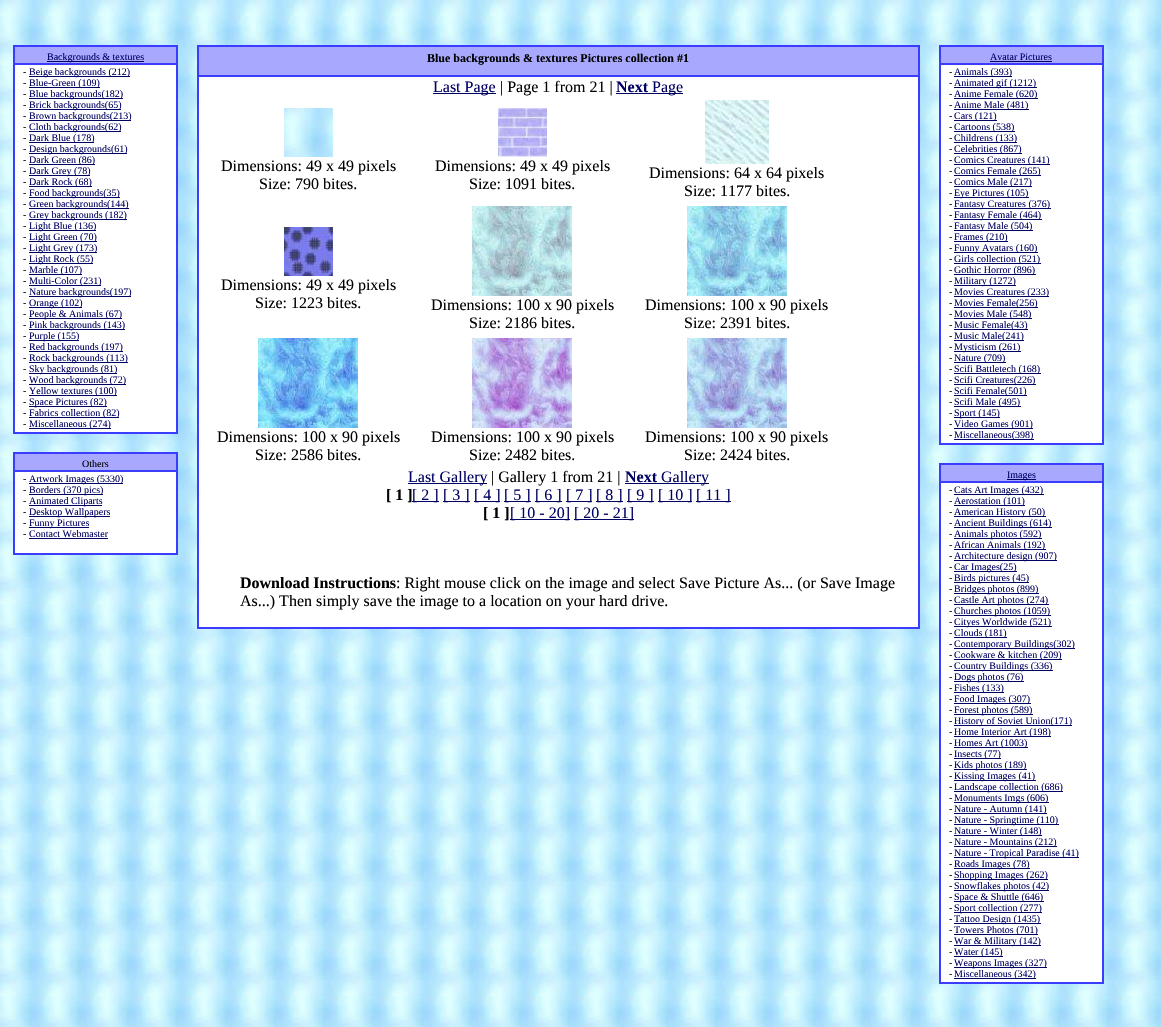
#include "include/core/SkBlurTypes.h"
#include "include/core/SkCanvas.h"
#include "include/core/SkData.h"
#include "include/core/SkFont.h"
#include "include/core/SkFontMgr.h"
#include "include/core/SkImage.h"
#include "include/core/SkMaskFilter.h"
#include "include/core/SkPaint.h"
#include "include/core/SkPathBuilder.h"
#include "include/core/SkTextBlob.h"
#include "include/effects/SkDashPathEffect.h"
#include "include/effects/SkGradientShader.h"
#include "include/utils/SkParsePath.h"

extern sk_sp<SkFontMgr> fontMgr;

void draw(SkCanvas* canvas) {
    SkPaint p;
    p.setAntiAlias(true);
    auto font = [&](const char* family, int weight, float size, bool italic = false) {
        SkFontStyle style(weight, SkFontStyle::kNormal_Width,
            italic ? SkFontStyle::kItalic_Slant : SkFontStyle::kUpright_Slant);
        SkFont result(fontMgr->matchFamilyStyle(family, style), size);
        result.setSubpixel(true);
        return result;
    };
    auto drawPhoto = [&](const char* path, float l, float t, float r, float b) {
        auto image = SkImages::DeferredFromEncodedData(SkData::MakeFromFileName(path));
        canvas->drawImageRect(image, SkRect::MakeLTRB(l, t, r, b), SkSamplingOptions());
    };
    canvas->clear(0xFFFFFFFF);
    drawPhoto("media/1.png", 0, 0, 1161, 1027);
    {
        const struct { float l, t, r, b; SkColor color; } items[] = {
            {13, 45, 178, 434, 0xFF3C3CFF},
            {15, 47, 176, 63, 0xFFA8A8FF},
            {47, 61, 144, 62, 0xFF000062},
        };
        for (auto [l, t, r, b, color] : items) {
            p.setColor(color);
            canvas->drawRect(SkRect::MakeLTRB(l, t, r, b), p);
        }
    }
    auto font1 = font("Liberation Serif", 400, 10);
    canvas->drawString("Backgrounds & textures", 47, 60, font1, p);
    p.setColor(0xFFFFFFFF);
    canvas->drawRect(SkRect::MakeLTRB(15, 65, 176, 432), p);
    p.setColor(0xFF000000);
    canvas->drawString("-", 23, 75, font1, p);
    p.setColor(0xFF000062);
    canvas->drawRect(SkRect::MakeLTRB(29, 76, 130, 77), p);
    canvas->drawString("Beige backgrounds (212)", 29, 75, font1, p);
    p.setColor(0xFF000000);
    canvas->drawString("-", 23, 86, font1, p);
    p.setColor(0xFF000062);
    canvas->drawRect(SkRect::MakeLTRB(29, 87, 100, 88), p);
    canvas->drawString("Blue-Green (109)", 29, 86, font1, p);
    p.setColor(0xFF000000);
    canvas->drawString("-", 23, 97, font1, p);
    p.setColor(0xFF000062);
    canvas->drawRect(SkRect::MakeLTRB(29, 98, 123, 99), p);
    canvas->drawString("Blue backgrounds(182)", 29, 97, font1, p);
    p.setColor(0xFF000000);
    canvas->drawString("-", 23, 108, font1, p);
    p.setColor(0xFF000062);
    canvas->drawRect(SkRect::MakeLTRB(29, 109, 121, 110), p);
    canvas->drawString("Brick backgrounds(65)", 29, 108, font1, p);
    p.setColor(0xFF000000);
    canvas->drawString("-", 23, 119, font1, p);
    p.setColor(0xFF000062);
    canvas->drawRect(SkRect::MakeLTRB(29, 120, 131, 121), p);
    canvas->drawString("Brown backgrounds(213)", 29, 119, font1, p);
    p.setColor(0xFF000000);
    canvas->drawString("-", 23, 130, font1, p);
    p.setColor(0xFF000062);
    canvas->drawRect(SkRect::MakeLTRB(29, 131, 121, 132), p);
    canvas->drawString("Cloth backgrounds(62)", 29, 130, font1, p);
    p.setColor(0xFF000000);
    canvas->drawString("-", 23, 141, font1, p);
    p.setColor(0xFF000062);
    canvas->drawRect(SkRect::MakeLTRB(29, 142, 94, 143), p);
    canvas->drawString("Dark Blue (178)", 29, 141, font1, p);
    p.setColor(0xFF000000);
    canvas->drawString("-", 23, 152, font1, p);
    p.setColor(0xFF000062);
    canvas->drawRect(SkRect::MakeLTRB(29, 153, 127, 154), p);
    canvas->drawString("Design backgrounds(61)", 29, 152, font1, p);
    p.setColor(0xFF000000);
    canvas->drawString("-", 23, 163, font1, p);
    p.setColor(0xFF000062);
    canvas->drawRect(SkRect::MakeLTRB(29, 164, 95, 165), p);
    canvas->drawString("Dark Green (86)", 29, 163, font1, p);
    p.setColor(0xFF000000);
    canvas->drawString("-", 23, 174, font1, p);
    p.setColor(0xFF000062);
    canvas->drawRect(SkRect::MakeLTRB(29, 175, 90, 176), p);
    canvas->drawString("Dark Grey (78)", 29, 174, font1, p);
    p.setColor(0xFF000000);
    canvas->drawString("-", 23, 185, font1, p);
    p.setColor(0xFF000062);
    canvas->drawRect(SkRect::MakeLTRB(29, 186, 92, 187), p);
    canvas->drawString("Dark Rock (68)", 29, 185, font1, p);
    p.setColor(0xFF000000);
    canvas->drawString("-", 23, 196, font1, p);
    p.setColor(0xFF000062);
    canvas->drawRect(SkRect::MakeLTRB(29, 197, 120, 198), p);
    canvas->drawString("Food backgrounds(35)", 29, 196, font1, p);
    p.setColor(0xFF000000);
    canvas->drawString("-", 23, 207, font1, p);
    p.setColor(0xFF000062);
    canvas->drawRect(SkRect::MakeLTRB(29, 208, 129, 209), p);
    canvas->drawString("Green backgrounds(144)", 29, 207, font1, p);
    p.setColor(0xFF000000);
    canvas->drawString("-", 23, 218, font1, p);
    p.setColor(0xFF000062);
    canvas->drawRect(SkRect::MakeLTRB(29, 219, 127, 220), p);
    canvas->drawString("Grey backgrounds (182)", 29, 218, font1, p);
    p.setColor(0xFF000000);
    canvas->drawString("-", 23, 229, font1, p);
    p.setColor(0xFF000062);
    canvas->drawRect(SkRect::MakeLTRB(29, 230, 96, 231), p);
    canvas->drawString("Light Blue (136)", 29, 229, font1, p);
    p.setColor(0xFF000000);
    canvas->drawString("-", 23, 240, font1, p);
    p.setColor(0xFF000062);
    canvas->drawRect(SkRect::MakeLTRB(29, 241, 97, 242), p);
    canvas->drawString("Light Green (70)", 29, 240, font1, p);
    p.setColor(0xFF000000);
    canvas->drawString("-", 23, 251, font1, p);
    p.setColor(0xFF000062);
    canvas->drawRect(SkRect::MakeLTRB(29, 252, 97, 253), p);
    canvas->drawString("Light Grey (173)", 29, 251, font1, p);
    p.setColor(0xFF000000);
    canvas->drawString("-", 23, 262, font1, p);
    p.setColor(0xFF000062);
    canvas->drawRect(SkRect::MakeLTRB(29, 263, 93, 264), p);
    canvas->drawString("Light Rock (55)", 29, 262, font1, p);
    p.setColor(0xFF000000);
    canvas->drawString("-", 23, 273, font1, p);
    p.setColor(0xFF000062);
    canvas->drawRect(SkRect::MakeLTRB(29, 274, 82, 275), p);
    canvas->drawString("Marble (107)", 29, 273, font1, p);
    p.setColor(0xFF000000);
    canvas->drawString("-", 23, 284, font1, p);
    p.setColor(0xFF000062);
    canvas->drawRect(SkRect::MakeLTRB(29, 285, 101, 286), p);
    canvas->drawString("Multi-Color (231)", 29, 284, font1, p);
    p.setColor(0xFF000000);
    canvas->drawString("-", 23, 295, font1, p);
    p.setColor(0xFF000062);
    canvas->drawRect(SkRect::MakeLTRB(29, 296, 131, 297), p);
    canvas->drawString("Nature backgrounds(197)", 29, 295, font1, p);
    p.setColor(0xFF000000);
    canvas->drawString("-", 23, 306, font1, p);
    p.setColor(0xFF000062);
    canvas->drawRect(SkRect::MakeLTRB(29, 307, 82, 308), p);
    canvas->drawString("Orange (102)", 29, 306, font1, p);
    p.setColor(0xFF000000);
    canvas->drawString("-", 23, 317, font1, p);
    p.setColor(0xFF000062);
    canvas->drawRect(SkRect::MakeLTRB(29, 318, 122, 319), p);
    canvas->drawString("People & Animals (67)", 29, 317, font1, p);
    p.setColor(0xFF000000);
    canvas->drawString("-", 23, 328, font1, p);
    p.setColor(0xFF000062);
    canvas->drawRect(SkRect::MakeLTRB(29, 329, 125, 330), p);
    canvas->drawString("Pink backgrounds (143)", 29, 328, font1, p);
    p.setColor(0xFF000000);
    canvas->drawString("-", 23, 339, font1, p);
    p.setColor(0xFF000062);
    canvas->drawRect(SkRect::MakeLTRB(29, 340, 79, 341), p);
    canvas->drawString("Purple (155)", 29, 339, font1, p);
    p.setColor(0xFF000000);
    canvas->drawString("-", 23, 350, font1, p);
    p.setColor(0xFF000062);
    canvas->drawRect(SkRect::MakeLTRB(29, 351, 123, 352), p);
    canvas->drawString("Red backgrounds (197)", 29, 350, font1, p);
    p.setColor(0xFF000000);
    canvas->drawString("-", 23, 361, font1, p);
    p.setColor(0xFF000062);
    canvas->drawRect(SkRect::MakeLTRB(29, 362, 128, 363), p);
    canvas->drawString("Rock backgrounds (113)", 29, 361, font1, p);
    p.setColor(0xFF000000);
    canvas->drawString("-", 23, 372, font1, p);
    p.setColor(0xFF000062);
    canvas->drawRect(SkRect::MakeLTRB(29, 373, 117, 374), p);
    canvas->drawString("Sky backgrounds (81)", 29, 372, font1, p);
    p.setColor(0xFF000000);
    canvas->drawString("-", 23, 383, font1, p);
    p.setColor(0xFF000062);
    canvas->drawRect(SkRect::MakeLTRB(29, 384, 126, 385), p);
    canvas->drawString("Wood backgrounds (72)", 29, 383, font1, p);
    p.setColor(0xFF000000);
    canvas->drawString("-", 23, 394, font1, p);
    p.setColor(0xFF000062);
    canvas->drawRect(SkRect::MakeLTRB(29, 395, 117, 396), p);
    canvas->drawString("Yellow textures (100)", 29, 394, font1, p);
    p.setColor(0xFF000000);
    canvas->drawString("-", 23, 405, font1, p);
    p.setColor(0xFF000062);
    canvas->drawRect(SkRect::MakeLTRB(29, 406, 107, 407), p);
    canvas->drawString("Space Pictures (82)", 29, 405, font1, p);
    p.setColor(0xFF000000);
    canvas->drawString("-", 23, 416, font1, p);
    p.setColor(0xFF000062);
    canvas->drawRect(SkRect::MakeLTRB(29, 417, 119, 418), p);
    canvas->drawString("Fabrics collection (82)", 29, 416, font1, p);
    p.setColor(0xFF000000);
    canvas->drawString("-", 23, 427, font1, p);
    p.setColor(0xFF000062);
    canvas->drawRect(SkRect::MakeLTRB(29, 428, 111, 429), p);
    canvas->drawString("Miscellaneous (274)", 29, 427, font1, p);
    p.setColor(0xFF3C3CFF);
    canvas->drawRect(SkRect::MakeLTRB(13, 452, 178, 555), p);
    p.setColor(0xFFA8A8FF);
    canvas->drawRect(SkRect::MakeLTRB(15, 454, 176, 470), p);
    p.setColor(0xFF000000);
    canvas->drawString("Others", 82, 467, font1, p);
    p.setColor(0xFFFFFFFF);
    canvas->drawRect(SkRect::MakeLTRB(15, 472, 176, 553), p);
    p.setColor(0xFF000000);
    canvas->drawString("-", 23, 482, font1, p);
    p.setColor(0xFF000062);
    canvas->drawRect(SkRect::MakeLTRB(29, 483, 123, 484), p);
    canvas->drawString("Artwork Images (5330)", 29, 482, font1, p);
    p.setColor(0xFF000000);
    canvas->drawString("-", 23, 493, font1, p);
    p.setColor(0xFF000062);
    canvas->drawRect(SkRect::MakeLTRB(29, 494, 103, 495), p);
    canvas->drawString("Borders (370 pics)", 29, 493, font1, p);
    p.setColor(0xFF000000);
    canvas->drawString("-", 23, 504, font1, p);
    p.setColor(0xFF000062);
    canvas->drawRect(SkRect::MakeLTRB(29, 505, 102, 506), p);
    canvas->drawString("Animated Cliparts", 29, 504, font1, p);
    p.setColor(0xFF000000);
    canvas->drawString("-", 23, 515, font1, p);
    p.setColor(0xFF000062);
    canvas->drawRect(SkRect::MakeLTRB(29, 516, 110, 517), p);
    canvas->drawString("Desktop Wallpapers", 29, 515, font1, p);
    p.setColor(0xFF000000);
    canvas->drawString("-", 23, 526, font1, p);
    p.setColor(0xFF000062);
    canvas->drawRect(SkRect::MakeLTRB(29, 527, 89, 528), p);
    canvas->drawString("Funny Pictures", 29, 526, font1, p);
    p.setColor(0xFF000000);
    canvas->drawString("-", 23, 537, font1, p);
    p.setColor(0xFF000062);
    canvas->drawString("Contact Webmaster", 29, 537, font1, p);
    {
        const struct { float l, t, r, b; SkColor color; } items[] = {
            {29, 538, 108, 539, 0xFF000062},
            {197, 45, 920, 629, 0xFF3C3CFF},
            {199, 47, 918, 75, 0xFFA8A8FF},
        };
        for (auto [l, t, r, b, color] : items) {
            p.setColor(color);
            canvas->drawRect(SkRect::MakeLTRB(l, t, r, b), p);
        }
    }
    auto font2 = font("Liberation Serif", 700, 12);
    p.setColor(0xFF000000);
    canvas->drawString("Blue backgrounds & textures Pictures collection #1", 427, 62, font2, p);
    p.setColor(0xFFFFFFFF);
    canvas->drawRect(SkRect::MakeLTRB(199, 77, 918, 627), p);
    p.setColor(0xFF000062);
    canvas->drawRect(SkRect::MakeLTRB(433, 93, 496, 94), p);
    auto font3 = font("Liberation Serif", 400, 16);
    canvas->drawString("Last Page", 433, 92, font3, p);
    p.setColor(0xFF000000);
    canvas->drawString("| Page 1 from 21 |", 500, 92, font3, p);
    auto font4 = font("Liberation Serif", 700, 16);
    p.setColor(0xFF000062);
    canvas->drawString("Next", 616, 92, font4, p);
    canvas->drawRect(SkRect::MakeLTRB(616, 93, 683, 94), p);
    canvas->drawString("Page", 652, 92, font3, p);
    drawPhoto("media/2.png", 284, 108, 333, 157);
    p.setColor(0xFF000000);
    canvas->drawString("Dimensions: 49 x 49 pixels", 221, 171, font3, p);
    canvas->drawString("Size: 790 bites.", 259, 189, font3, p);
    drawPhoto("media/3.png", 498, 108, 547, 157);
    canvas->drawString("Dimensions: 49 x 49 pixels", 435, 171, font3, p);
    canvas->drawString("Size: 1091 bites.", 469, 189, font3, p);
    drawPhoto("media/4.png", 705, 100, 769, 164);
    canvas->drawString("Dimensions: 64 x 64 pixels", 649, 178, font3, p);
    canvas->drawString("Size: 1177 bites.", 684, 196, font3, p);
    drawPhoto("media/5.png", 284, 227, 333, 276);
    canvas->drawString("Dimensions: 49 x 49 pixels", 221, 290, font3, p);
    canvas->drawString("Size: 1223 bites.", 255, 308, font3, p);
    drawPhoto("media/6.png", 472, 206, 572, 296);
    canvas->drawString("Dimensions: 100 x 90 pixels", 431, 310, font3, p);
    canvas->drawString("Size: 2186 bites.", 469, 328, font3, p);
    drawPhoto("media/7.png", 687, 206, 787, 296);
    canvas->drawString("Dimensions: 100 x 90 pixels", 645, 310, font3, p);
    canvas->drawString("Size: 2391 bites.", 684, 328, font3, p);
    drawPhoto("media/8.png", 258, 338, 358, 428);
    canvas->drawString("Dimensions: 100 x 90 pixels", 217, 442, font3, p);
    canvas->drawString("Size: 2586 bites.", 255, 460, font3, p);
    drawPhoto("media/9.png", 472, 338, 572, 428);
    canvas->drawString("Dimensions: 100 x 90 pixels", 431, 442, font3, p);
    canvas->drawString("Size: 2482 bites.", 469, 460, font3, p);
    drawPhoto("media/10.png", 687, 338, 787, 428);
    canvas->drawString("Dimensions: 100 x 90 pixels", 645, 442, font3, p);
    canvas->drawString("Size: 2424 bites.", 684, 460, font3, p);
    p.setColor(0xFF000062);
    canvas->drawRect(SkRect::MakeLTRB(408, 483, 487, 484), p);
    canvas->drawString("Last Gallery", 408, 482, font3, p);
    p.setColor(0xFF000000);
    canvas->drawString("| Gallery 1 from 21 |", 491, 482, font3, p);
    p.setColor(0xFF000062);
    canvas->drawString("Next", 625, 482, font4, p);
    canvas->drawRect(SkRect::MakeLTRB(625, 483, 709, 484), p);
    canvas->drawString("Gallery", 661, 482, font3, p);
    p.setColor(0xFF000000);
    canvas->drawString("[ 1 ]", 386, 500, font4, p);
    p.setColor(0xFF000062);
    canvas->drawRect(SkRect::MakeLTRB(412, 501, 439, 502), p);
    canvas->drawString("[ 2 ]", 412, 500, font3, p);
    canvas->drawRect(SkRect::MakeLTRB(443, 501, 470, 502), p);
    canvas->drawString("[ 3 ]", 443, 500, font3, p);
    canvas->drawRect(SkRect::MakeLTRB(474, 501, 500, 502), p);
    canvas->drawString("[ 4 ]", 474, 500, font3, p);
    canvas->drawRect(SkRect::MakeLTRB(504, 501, 531, 502), p);
    canvas->drawString("[ 5 ]", 504, 500, font3, p);
    canvas->drawRect(SkRect::MakeLTRB(535, 501, 562, 502), p);
    canvas->drawString("[ 6 ]", 535, 500, font3, p);
    canvas->drawRect(SkRect::MakeLTRB(566, 501, 592, 502), p);
    canvas->drawString("[ 7 ]", 566, 500, font3, p);
    canvas->drawRect(SkRect::MakeLTRB(596, 501, 623, 502), p);
    canvas->drawString("[ 8 ]", 596, 500, font3, p);
    canvas->drawRect(SkRect::MakeLTRB(627, 501, 654, 502), p);
    canvas->drawString("[ 9 ]", 627, 500, font3, p);
    canvas->drawRect(SkRect::MakeLTRB(658, 501, 692, 502), p);
    canvas->drawString("[ 10 ]", 658, 500, font3, p);
    canvas->drawRect(SkRect::MakeLTRB(696, 501, 731, 502), p);
    canvas->drawString("[ 11 ]", 696, 500, font3, p);
    p.setColor(0xFF000000);
    canvas->drawString("[ 1 ]", 483, 518, font4, p);
    p.setColor(0xFF000062);
    canvas->drawRect(SkRect::MakeLTRB(510, 519, 570, 520), p);
    canvas->drawString("[ 10 - 20]", 510, 518, font3, p);
    canvas->drawRect(SkRect::MakeLTRB(574, 519, 634, 520), p);
    canvas->drawString("[ 20 - 21]", 574, 518, font3, p);
    p.setColor(0xFF000000);
    canvas->drawString("Download Instructions", 240, 588, font4, p);
    canvas->drawString(": Right mouse click on the image and select Save Picture As... (or Save Image", 396, 588, font3, p);
    canvas->drawString("As...) Then simply save the image to a location on your hard drive.", 240, 606, font3, p);
    p.setColor(0xFF3C3CFF);
    canvas->drawRect(SkRect::MakeLTRB(939, 45, 1104, 445), p);
    p.setColor(0xFFA8A8FF);
    canvas->drawRect(SkRect::MakeLTRB(941, 47, 1102, 63), p);
    p.setColor(0xFF000062);
    canvas->drawString("Avatar Pictures", 990, 60, font1, p);
    canvas->drawRect(SkRect::MakeLTRB(990, 61, 1052, 62), p);
    p.setColor(0xFFFFFFFF);
    canvas->drawRect(SkRect::MakeLTRB(941, 65, 1102, 443), p);
    p.setColor(0xFF000000);
    canvas->drawString("-", 949, 75, font1, p);
    p.setColor(0xFF000062);
    canvas->drawRect(SkRect::MakeLTRB(954, 76, 1012, 77), p);
    canvas->drawString("Animals (393)", 954, 75, font1, p);
    p.setColor(0xFF000000);
    canvas->drawString("-", 949, 86, font1, p);
    p.setColor(0xFF000062);
    canvas->drawRect(SkRect::MakeLTRB(954, 87, 1037, 88), p);
    canvas->drawString("Animated gif (1212)", 954, 86, font1, p);
    p.setColor(0xFF000000);
    canvas->drawString("-", 949, 97, font1, p);
    p.setColor(0xFF000062);
    canvas->drawRect(SkRect::MakeLTRB(954, 98, 1038, 99), p);
    canvas->drawString("Anime Female (620)", 954, 97, font1, p);
    p.setColor(0xFF000000);
    canvas->drawString("-", 949, 108, font1, p);
    p.setColor(0xFF000062);
    canvas->drawRect(SkRect::MakeLTRB(954, 109, 1029, 110), p);
    canvas->drawString("Anime Male (481)", 954, 108, font1, p);
    p.setColor(0xFF000000);
    canvas->drawString("-", 949, 119, font1, p);
    p.setColor(0xFF000062);
    canvas->drawRect(SkRect::MakeLTRB(954, 120, 997, 121), p);
    canvas->drawString("Cars (121)", 954, 119, font1, p);
    p.setColor(0xFF000000);
    canvas->drawString("-", 949, 130, font1, p);
    p.setColor(0xFF000062);
    canvas->drawRect(SkRect::MakeLTRB(954, 131, 1015, 132), p);
    canvas->drawString("Cartoons (538)", 954, 130, font1, p);
    p.setColor(0xFF000000);
    canvas->drawString("-", 949, 141, font1, p);
    p.setColor(0xFF000062);
    canvas->drawRect(SkRect::MakeLTRB(954, 142, 1017, 143), p);
    canvas->drawString("Childrens (133)", 954, 141, font1, p);
    p.setColor(0xFF000000);
    canvas->drawString("-", 949, 152, font1, p);
    p.setColor(0xFF000062);
    canvas->drawRect(SkRect::MakeLTRB(954, 153, 1022, 154), p);
    canvas->drawString("Celebrities (867)", 954, 152, font1, p);
    p.setColor(0xFF000000);
    canvas->drawString("-", 949, 163, font1, p);
    p.setColor(0xFF000062);
    canvas->drawRect(SkRect::MakeLTRB(954, 164, 1050, 165), p);
    canvas->drawString("Comics Creatures (141)", 954, 163, font1, p);
    p.setColor(0xFF000000);
    canvas->drawString("-", 949, 174, font1, p);
    p.setColor(0xFF000062);
    canvas->drawRect(SkRect::MakeLTRB(954, 175, 1041, 176), p);
    canvas->drawString("Comics Female (265)", 954, 174, font1, p);
    p.setColor(0xFF000000);
    canvas->drawString("-", 949, 185, font1, p);
    p.setColor(0xFF000062);
    canvas->drawRect(SkRect::MakeLTRB(954, 186, 1032, 187), p);
    canvas->drawString("Comics Male (217)", 954, 185, font1, p);
    p.setColor(0xFF000000);
    canvas->drawString("-", 949, 196, font1, p);
    p.setColor(0xFF000062);
    canvas->drawRect(SkRect::MakeLTRB(954, 197, 1029, 198), p);
    canvas->drawString("Eye Pictures (105)", 954, 196, font1, p);
    p.setColor(0xFF000000);
    canvas->drawString("-", 949, 207, font1, p);
    p.setColor(0xFF000062);
    canvas->drawRect(SkRect::MakeLTRB(954, 208, 1051, 209), p);
    canvas->drawString("Fantasy Creatures (376)", 954, 207, font1, p);
    p.setColor(0xFF000000);
    canvas->drawString("-", 949, 218, font1, p);
    p.setColor(0xFF000062);
    canvas->drawRect(SkRect::MakeLTRB(954, 219, 1042, 220), p);
    canvas->drawString("Fantasy Female (464)", 954, 218, font1, p);
    p.setColor(0xFF000000);
    canvas->drawString("-", 949, 229, font1, p);
    p.setColor(0xFF000062);
    canvas->drawRect(SkRect::MakeLTRB(954, 230, 1033, 231), p);
    canvas->drawString("Fantasy Male (504)", 954, 229, font1, p);
    p.setColor(0xFF000000);
    canvas->drawString("-", 949, 240, font1, p);
    p.setColor(0xFF000062);
    canvas->drawRect(SkRect::MakeLTRB(954, 241, 1008, 242), p);
    canvas->drawString("Frames (210)", 954, 240, font1, p);
    p.setColor(0xFF000000);
    canvas->drawString("-", 949, 251, font1, p);
    p.setColor(0xFF000062);
    canvas->drawRect(SkRect::MakeLTRB(954, 252, 1038, 253), p);
    canvas->drawString("Funny Avatars (160)", 954, 251, font1, p);
    p.setColor(0xFF000000);
    canvas->drawString("-", 949, 262, font1, p);
    p.setColor(0xFF000062);
    canvas->drawRect(SkRect::MakeLTRB(954, 263, 1041, 264), p);
    canvas->drawString("Girls collection (521)", 954, 262, font1, p);
    p.setColor(0xFF000000);
    canvas->drawString("-", 949, 273, font1, p);
    p.setColor(0xFF000062);
    canvas->drawRect(SkRect::MakeLTRB(954, 274, 1036, 275), p);
    canvas->drawString("Gothic Horror (896)", 954, 273, font1, p);
    p.setColor(0xFF000000);
    canvas->drawString("-", 949, 284, font1, p);
    p.setColor(0xFF000062);
    canvas->drawRect(SkRect::MakeLTRB(954, 285, 1016, 286), p);
    canvas->drawString("Military (1272)", 954, 284, font1, p);
    p.setColor(0xFF000000);
    canvas->drawString("-", 949, 295, font1, p);
    p.setColor(0xFF000062);
    canvas->drawRect(SkRect::MakeLTRB(954, 296, 1049, 297), p);
    canvas->drawString("Movies Creatures (233)", 954, 295, font1, p);
    p.setColor(0xFF000000);
    canvas->drawString("-", 949, 306, font1, p);
    p.setColor(0xFF000062);
    canvas->drawRect(SkRect::MakeLTRB(954, 307, 1038, 308), p);
    canvas->drawString("Movies Female(256)", 954, 306, font1, p);
    p.setColor(0xFF000000);
    canvas->drawString("-", 949, 317, font1, p);
    p.setColor(0xFF000062);
    canvas->drawRect(SkRect::MakeLTRB(954, 318, 1032, 319), p);
    canvas->drawString("Movies Male (548)", 954, 317, font1, p);
    p.setColor(0xFF000000);
    canvas->drawString("-", 949, 328, font1, p);
    p.setColor(0xFF000062);
    canvas->drawRect(SkRect::MakeLTRB(954, 329, 1028, 330), p);
    canvas->drawString("Music Female(43)", 954, 328, font1, p);
    p.setColor(0xFF000000);
    canvas->drawString("-", 949, 339, font1, p);
    p.setColor(0xFF000062);
    canvas->drawRect(SkRect::MakeLTRB(954, 340, 1024, 341), p);
    canvas->drawString("Music Male(241)", 954, 339, font1, p);
    p.setColor(0xFF000000);
    canvas->drawString("-", 949, 350, font1, p);
    p.setColor(0xFF000062);
    canvas->drawRect(SkRect::MakeLTRB(954, 351, 1021, 352), p);
    canvas->drawString("Mysticism (261)", 954, 350, font1, p);
    p.setColor(0xFF000000);
    canvas->drawString("-", 949, 361, font1, p);
    p.setColor(0xFF000062);
    canvas->drawRect(SkRect::MakeLTRB(954, 362, 1006, 363), p);
    canvas->drawString("Nature (709)", 954, 361, font1, p);
    p.setColor(0xFF000000);
    canvas->drawString("-", 949, 372, font1, p);
    p.setColor(0xFF000062);
    canvas->drawRect(SkRect::MakeLTRB(954, 373, 1041, 374), p);
    canvas->drawString("Scifi Battletech (168)", 954, 372, font1, p);
    p.setColor(0xFF000000);
    canvas->drawString("-", 949, 383, font1, p);
    p.setColor(0xFF000062);
    canvas->drawRect(SkRect::MakeLTRB(954, 384, 1036, 385), p);
    canvas->drawString("Scifi Creatures(226)", 954, 383, font1, p);
    p.setColor(0xFF000000);
    canvas->drawString("-", 949, 394, font1, p);
    p.setColor(0xFF000062);
    canvas->drawRect(SkRect::MakeLTRB(954, 395, 1027, 396), p);
    canvas->drawString("Scifi Female(501)", 954, 394, font1, p);
    p.setColor(0xFF000000);
    canvas->drawString("-", 949, 405, font1, p);
    p.setColor(0xFF000062);
    canvas->drawRect(SkRect::MakeLTRB(954, 406, 1021, 407), p);
    canvas->drawString("Scifi Male (495)", 954, 405, font1, p);
    p.setColor(0xFF000000);
    canvas->drawString("-", 949, 416, font1, p);
    p.setColor(0xFF000062);
    canvas->drawRect(SkRect::MakeLTRB(954, 417, 1000, 418), p);
    canvas->drawString("Sport (145)", 954, 416, font1, p);
    p.setColor(0xFF000000);
    canvas->drawString("-", 949, 427, font1, p);
    p.setColor(0xFF000062);
    canvas->drawRect(SkRect::MakeLTRB(954, 428, 1033, 429), p);
    canvas->drawString("Video Games (901)", 954, 427, font1, p);
    p.setColor(0xFF000000);
    canvas->drawString("-", 949, 438, font1, p);
    p.setColor(0xFF000062);
    canvas->drawRect(SkRect::MakeLTRB(954, 439, 1034, 440), p);
    canvas->drawString("Miscellaneous(398)", 954, 438, font1, p);
    {
        const struct { float l, t, r, b; SkColor color; } items[] = {
            {939, 463, 1104, 984, 0xFF3C3CFF},
            {941, 465, 1102, 481, 0xFFA8A8FF},
            {1007, 479, 1036, 480, 0xFF000062},
        };
        for (auto [l, t, r, b, color] : items) {
            p.setColor(color);
            canvas->drawRect(SkRect::MakeLTRB(l, t, r, b), p);
        }
    }
    canvas->drawString("Images", 1007, 478, font1, p);
    p.setColor(0xFFFFFFFF);
    canvas->drawRect(SkRect::MakeLTRB(941, 483, 1102, 982), p);
    p.setColor(0xFF000000);
    canvas->drawString("-", 949, 493, font1, p);
    p.setColor(0xFF000062);
    canvas->drawRect(SkRect::MakeLTRB(954, 494, 1044, 495), p);
    canvas->drawString("Cats Art Images (432)", 954, 493, font1, p);
    p.setColor(0xFF000000);
    canvas->drawString("-", 949, 504, font1, p);
    p.setColor(0xFF000062);
    canvas->drawRect(SkRect::MakeLTRB(954, 505, 1025, 506), p);
    canvas->drawString("Aerostation (101)", 954, 504, font1, p);
    p.setColor(0xFF000000);
    canvas->drawString("-", 949, 515, font1, p);
    p.setColor(0xFF000062);
    canvas->drawRect(SkRect::MakeLTRB(954, 516, 1046, 517), p);
    canvas->drawString("American History (50)", 954, 515, font1, p);
    p.setColor(0xFF000000);
    canvas->drawString("-", 949, 526, font1, p);
    p.setColor(0xFF000062);
    canvas->drawRect(SkRect::MakeLTRB(954, 527, 1052, 528), p);
    canvas->drawString("Ancient Buildings (614)", 954, 526, font1, p);
    p.setColor(0xFF000000);
    canvas->drawString("-", 949, 537, font1, p);
    p.setColor(0xFF000062);
    canvas->drawRect(SkRect::MakeLTRB(954, 538, 1042, 539), p);
    canvas->drawString("Animals photos (592)", 954, 537, font1, p);
    p.setColor(0xFF000000);
    canvas->drawString("-", 949, 548, font1, p);
    p.setColor(0xFF000062);
    canvas->drawRect(SkRect::MakeLTRB(954, 549, 1046, 550), p);
    canvas->drawString("African Animals (192)", 954, 548, font1, p);
    p.setColor(0xFF000000);
    canvas->drawString("-", 949, 559, font1, p);
    p.setColor(0xFF000062);
    canvas->drawRect(SkRect::MakeLTRB(954, 560, 1057, 561), p);
    canvas->drawString("Architecture design (907)", 954, 559, font1, p);
    p.setColor(0xFF000000);
    canvas->drawString("-", 949, 570, font1, p);
    p.setColor(0xFF000062);
    canvas->drawRect(SkRect::MakeLTRB(954, 571, 1017, 572), p);
    canvas->drawString("Car Images(25)", 954, 570, font1, p);
    p.setColor(0xFF000000);
    canvas->drawString("-", 949, 581, font1, p);
    p.setColor(0xFF000062);
    canvas->drawRect(SkRect::MakeLTRB(954, 582, 1029, 583), p);
    canvas->drawString("Birds pictures (45)", 954, 581, font1, p);
    p.setColor(0xFF000000);
    canvas->drawString("-", 949, 592, font1, p);
    p.setColor(0xFF000062);
    canvas->drawRect(SkRect::MakeLTRB(954, 593, 1039, 594), p);
    canvas->drawString("Bridges photos (899)", 954, 592, font1, p);
    p.setColor(0xFF000000);
    canvas->drawString("-", 949, 603, font1, p);
    p.setColor(0xFF000062);
    canvas->drawRect(SkRect::MakeLTRB(954, 604, 1049, 605), p);
    canvas->drawString("Castle Art photos (274)", 954, 603, font1, p);
    p.setColor(0xFF000000);
    canvas->drawString("-", 949, 614, font1, p);
    p.setColor(0xFF000062);
    canvas->drawRect(SkRect::MakeLTRB(954, 615, 1051, 616), p);
    canvas->drawString("Churches photos (1059)", 954, 614, font1, p);
    p.setColor(0xFF000000);
    canvas->drawString("-", 949, 625, font1, p);
    p.setColor(0xFF000062);
    canvas->drawRect(SkRect::MakeLTRB(954, 626, 1052, 627), p);
    canvas->drawString("Cityes Worldwide (521)", 954, 625, font1, p);
    p.setColor(0xFF000000);
    canvas->drawString("-", 949, 636, font1, p);
    p.setColor(0xFF000062);
    canvas->drawRect(SkRect::MakeLTRB(954, 637, 1007, 638), p);
    canvas->drawString("Clouds (181)", 954, 636, font1, p);
    p.setColor(0xFF000000);
    canvas->drawString("-", 949, 647, font1, p);
    p.setColor(0xFF000062);
    canvas->drawRect(SkRect::MakeLTRB(954, 648, 1075, 649), p);
    canvas->drawString("Contemporary Buildings(302)", 954, 647, font1, p);
    p.setColor(0xFF000000);
    canvas->drawString("-", 949, 658, font1, p);
    p.setColor(0xFF000062);
    canvas->drawRect(SkRect::MakeLTRB(954, 659, 1062, 660), p);
    canvas->drawString("Cookware & kitchen (209)", 954, 658, font1, p);
    p.setColor(0xFF000000);
    canvas->drawString("-", 949, 669, font1, p);
    p.setColor(0xFF000062);
    canvas->drawRect(SkRect::MakeLTRB(954, 670, 1053, 671), p);
    canvas->drawString("Country Buildings (336)", 954, 669, font1, p);
    p.setColor(0xFF000000);
    canvas->drawString("-", 949, 680, font1, p);
    p.setColor(0xFF000062);
    canvas->drawRect(SkRect::MakeLTRB(954, 681, 1024, 682), p);
    canvas->drawString("Dogs photos (76)", 954, 680, font1, p);
    p.setColor(0xFF000000);
    canvas->drawString("-", 949, 691, font1, p);
    p.setColor(0xFF000062);
    canvas->drawRect(SkRect::MakeLTRB(954, 692, 1004, 693), p);
    canvas->drawString("Fishes (133)", 954, 691, font1, p);
    p.setColor(0xFF000000);
    canvas->drawString("-", 949, 702, font1, p);
    p.setColor(0xFF000062);
    canvas->drawRect(SkRect::MakeLTRB(954, 703, 1031, 704), p);
    canvas->drawString("Food Images (307)", 954, 702, font1, p);
    p.setColor(0xFF000000);
    canvas->drawString("-", 949, 713, font1, p);
    p.setColor(0xFF000062);
    canvas->drawRect(SkRect::MakeLTRB(954, 714, 1033, 715), p);
    canvas->drawString("Forest photos (589)", 954, 713, font1, p);
    p.setColor(0xFF000000);
    canvas->drawString("-", 949, 724, font1, p);
    p.setColor(0xFF000062);
    canvas->drawRect(SkRect::MakeLTRB(954, 725, 1072, 726), p);
    canvas->drawString("History of Soviet Union(171)", 954, 724, font1, p);
    p.setColor(0xFF000000);
    canvas->drawString("-", 949, 735, font1, p);
    p.setColor(0xFF000062);
    canvas->drawRect(SkRect::MakeLTRB(954, 736, 1051, 737), p);
    canvas->drawString("Home Interior Art (198)", 954, 735, font1, p);
    p.setColor(0xFF000000);
    canvas->drawString("-", 949, 746, font1, p);
    p.setColor(0xFF000062);
    canvas->drawRect(SkRect::MakeLTRB(954, 747, 1028, 748), p);
    canvas->drawString("Homes Art (1003)", 954, 746, font1, p);
    p.setColor(0xFF000000);
    canvas->drawString("-", 949, 757, font1, p);
    p.setColor(0xFF000062);
    canvas->drawRect(SkRect::MakeLTRB(954, 758, 1001, 759), p);
    canvas->drawString("Insects (77)", 954, 757, font1, p);
    p.setColor(0xFF000000);
    canvas->drawString("-", 949, 768, font1, p);
    p.setColor(0xFF000062);
    canvas->drawRect(SkRect::MakeLTRB(954, 769, 1027, 770), p);
    canvas->drawString("Kids photos (189)", 954, 768, font1, p);
    p.setColor(0xFF000000);
    canvas->drawString("-", 949, 779, font1, p);
    p.setColor(0xFF000062);
    canvas->drawRect(SkRect::MakeLTRB(954, 780, 1036, 781), p);
    canvas->drawString("Kissing Images (41)", 954, 779, font1, p);
    p.setColor(0xFF000000);
    canvas->drawString("-", 949, 790, font1, p);
    p.setColor(0xFF000062);
    canvas->drawRect(SkRect::MakeLTRB(954, 791, 1063, 792), p);
    canvas->drawString("Landscape collection (686)", 954, 790, font1, p);
    p.setColor(0xFF000000);
    canvas->drawString("-", 949, 801, font1, p);
    p.setColor(0xFF000062);
    canvas->drawRect(SkRect::MakeLTRB(954, 802, 1049, 803), p);
    canvas->drawString("Monuments Imgs (606)", 954, 801, font1, p);
    p.setColor(0xFF000000);
    canvas->drawString("-", 949, 812, font1, p);
    p.setColor(0xFF000062);
    canvas->drawRect(SkRect::MakeLTRB(954, 813, 1047, 814), p);
    canvas->drawString("Nature - Autumn (141)", 954, 812, font1, p);
    p.setColor(0xFF000000);
    canvas->drawString("-", 949, 823, font1, p);
    p.setColor(0xFF000062);
    canvas->drawRect(SkRect::MakeLTRB(954, 824, 1059, 825), p);
    canvas->drawString("Nature - Springtime (110)", 954, 823, font1, p);
    p.setColor(0xFF000000);
    canvas->drawString("-", 949, 834, font1, p);
    p.setColor(0xFF000062);
    canvas->drawRect(SkRect::MakeLTRB(954, 835, 1042, 836), p);
    canvas->drawString("Nature - Winter (148)", 954, 834, font1, p);
    p.setColor(0xFF000000);
    canvas->drawString("-", 949, 845, font1, p);
    p.setColor(0xFF000062);
    canvas->drawRect(SkRect::MakeLTRB(954, 846, 1057, 847), p);
    canvas->drawString("Nature - Mountains (212)", 954, 845, font1, p);
    p.setColor(0xFF000000);
    canvas->drawString("-", 949, 856, font1, p);
    p.setColor(0xFF000062);
    canvas->drawRect(SkRect::MakeLTRB(954, 857, 1079, 858), p);
    canvas->drawString("Nature - Tropical Paradise (41)", 954, 856, font1, p);
    p.setColor(0xFF000000);
    canvas->drawString("-", 949, 867, font1, p);
    p.setColor(0xFF000062);
    canvas->drawRect(SkRect::MakeLTRB(954, 868, 1030, 869), p);
    canvas->drawString("Roads Images (78)", 954, 867, font1, p);
    p.setColor(0xFF000000);
    canvas->drawString("-", 949, 878, font1, p);
    p.setColor(0xFF000062);
    canvas->drawRect(SkRect::MakeLTRB(954, 879, 1048, 880), p);
    canvas->drawString("Shopping Images (262)", 954, 878, font1, p);
    p.setColor(0xFF000000);
    canvas->drawString("-", 949, 889, font1, p);
    p.setColor(0xFF000062);
    canvas->drawRect(SkRect::MakeLTRB(954, 890, 1049, 891), p);
    canvas->drawString("Snowflakes photos (42)", 954, 889, font1, p);
    p.setColor(0xFF000000);
    canvas->drawString("-", 949, 900, font1, p);
    p.setColor(0xFF000062);
    canvas->drawRect(SkRect::MakeLTRB(954, 901, 1044, 902), p);
    canvas->drawString("Space & Shuttle (646)", 954, 900, font1, p);
    p.setColor(0xFF000000);
    canvas->drawString("-", 949, 911, font1, p);
    p.setColor(0xFF000062);
    canvas->drawRect(SkRect::MakeLTRB(954, 912, 1042, 913), p);
    canvas->drawString("Sport collection (277)", 954, 911, font1, p);
    p.setColor(0xFF000000);
    canvas->drawString("-", 949, 922, font1, p);
    p.setColor(0xFF000062);
    canvas->drawRect(SkRect::MakeLTRB(954, 923, 1041, 924), p);
    canvas->drawString("Tattoo Design (1435)", 954, 922, font1, p);
    p.setColor(0xFF000000);
    canvas->drawString("-", 949, 933, font1, p);
    p.setColor(0xFF000062);
    canvas->drawRect(SkRect::MakeLTRB(954, 934, 1038, 935), p);
    canvas->drawString("Towers Photos (701)", 954, 933, font1, p);
    p.setColor(0xFF000000);
    canvas->drawString("-", 949, 944, font1, p);
    p.setColor(0xFF000062);
    canvas->drawRect(SkRect::MakeLTRB(954, 945, 1041, 946), p);
    canvas->drawString("War & Military (142)", 954, 944, font1, p);
    p.setColor(0xFF000000);
    canvas->drawString("-", 949, 955, font1, p);
    p.setColor(0xFF000062);
    canvas->drawRect(SkRect::MakeLTRB(954, 956, 1003, 957), p);
    canvas->drawString("Water (145)", 954, 955, font1, p);
    p.setColor(0xFF000000);
    canvas->drawString("-", 949, 966, font1, p);
    p.setColor(0xFF000062);
    canvas->drawRect(SkRect::MakeLTRB(954, 967, 1047, 968), p);
    canvas->drawString("Weapons Images (327)", 954, 966, font1, p);
    p.setColor(0xFF000000);
    canvas->drawString("-", 949, 977, font1, p);
    p.setColor(0xFF000062);
    canvas->drawRect(SkRect::MakeLTRB(954, 978, 1036, 979), p);
    canvas->drawString("Miscellaneous (342)", 954, 977, font1, p);
}
